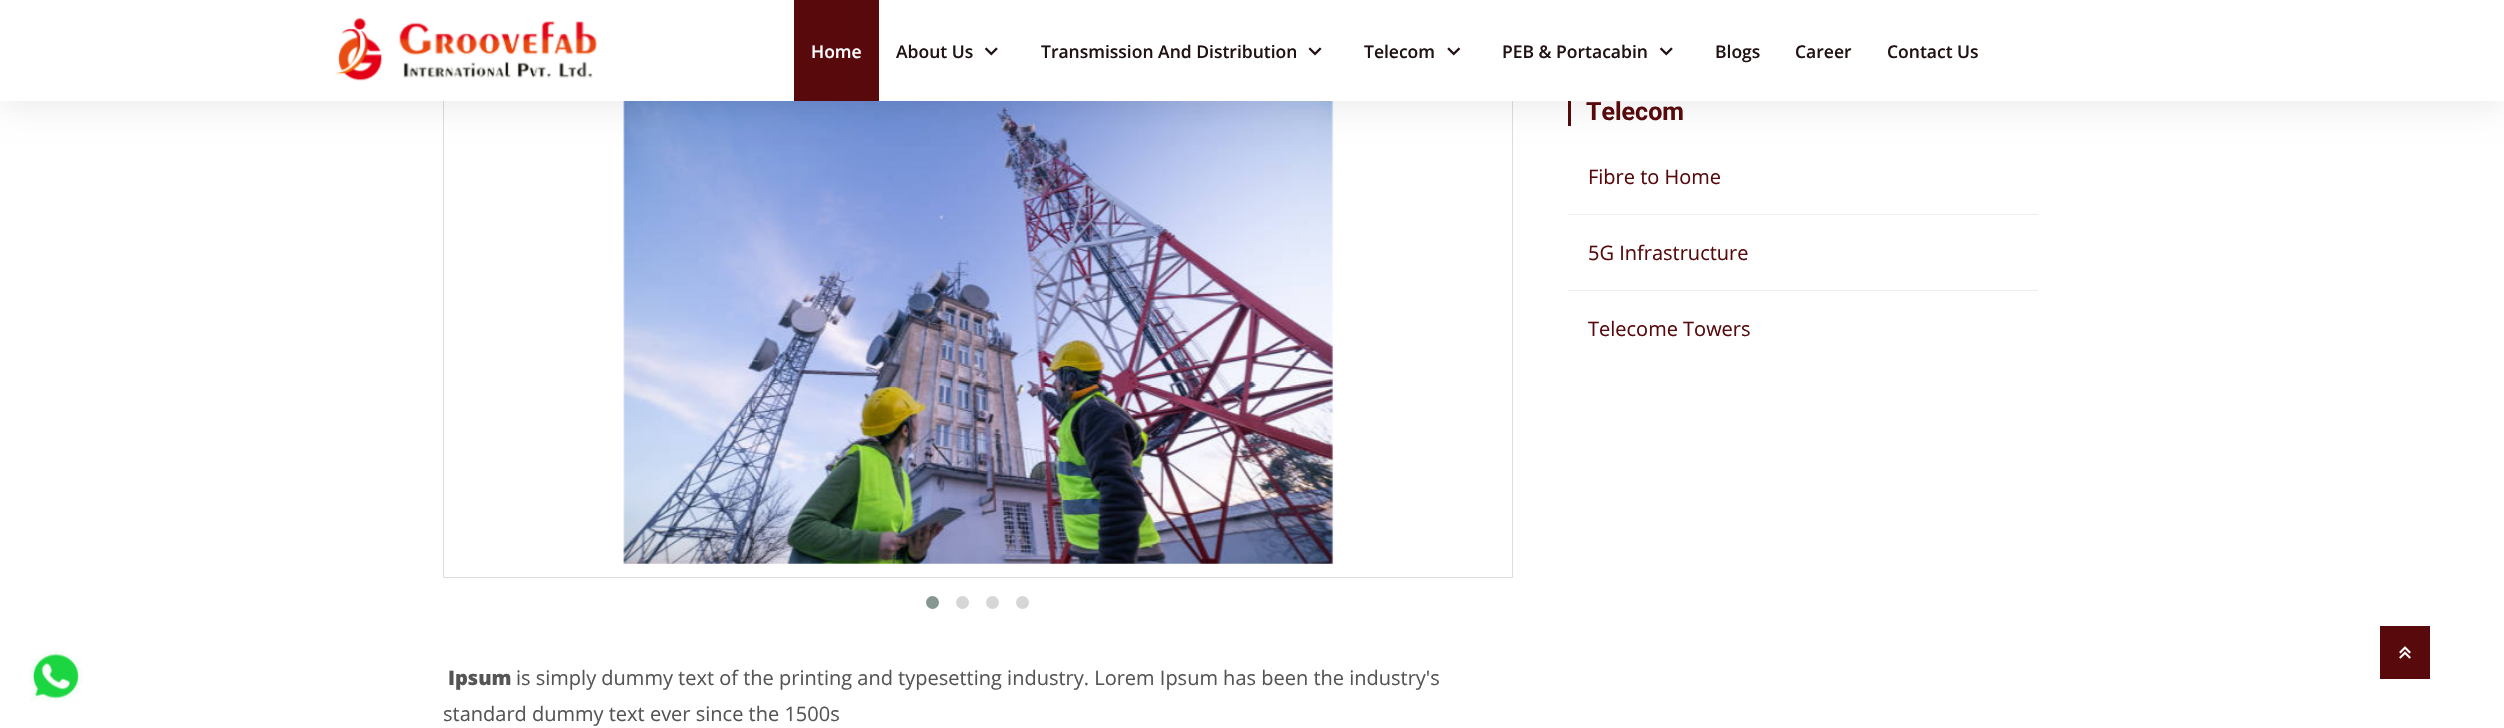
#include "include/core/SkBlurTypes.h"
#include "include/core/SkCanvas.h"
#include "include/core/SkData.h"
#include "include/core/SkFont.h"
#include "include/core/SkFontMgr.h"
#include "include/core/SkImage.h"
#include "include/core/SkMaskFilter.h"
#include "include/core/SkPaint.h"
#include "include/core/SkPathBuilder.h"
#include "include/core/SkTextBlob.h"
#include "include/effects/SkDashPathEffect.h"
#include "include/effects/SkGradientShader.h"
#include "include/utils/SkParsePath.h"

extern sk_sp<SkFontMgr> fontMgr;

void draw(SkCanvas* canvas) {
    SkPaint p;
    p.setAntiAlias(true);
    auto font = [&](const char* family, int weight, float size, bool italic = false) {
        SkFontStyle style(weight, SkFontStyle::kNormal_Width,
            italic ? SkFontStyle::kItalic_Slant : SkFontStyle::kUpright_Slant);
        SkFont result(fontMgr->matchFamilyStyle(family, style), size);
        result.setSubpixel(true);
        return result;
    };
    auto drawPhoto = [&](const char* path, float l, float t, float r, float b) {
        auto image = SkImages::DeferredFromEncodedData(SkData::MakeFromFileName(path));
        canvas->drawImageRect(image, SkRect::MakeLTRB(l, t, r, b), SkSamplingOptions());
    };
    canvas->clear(0xFFFFFFFF);
    p.setColor(0xFF57090C);
    canvas->drawRect(SkRect::MakeLTRB(1568, 96, 1571, 126), p);
    p.setStyle(SkPaint::kStroke_Style);
    p.setStrokeWidth(1);
    p.setColor(0xFFDDDDDD);
    canvas->drawRect(SkRect::MakeLTRB(443.5f, 78.5f, 1512.5f, 577.5f), p);
    drawPhoto("media/6.png", 623, 101, 1334, 564);
    p.setStyle(SkPaint::kFill_Style);
    p.setColor(0x17000000);
    p.setMaskFilter(SkMaskFilter::MakeBlur(kNormal_SkBlurStyle, 17.5f));
    canvas->drawRect(SkRect::MakeLTRB(0, 3, 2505, 104), p);
    p.setMaskFilter(nullptr);
    p.setColor(0xFFFFFFFF);
    canvas->drawRect(SkRect::MakeLTRB(0, 0, 2504, 101), p);
    drawPhoto("media/1.png", 335, 18, 598, 81);
    p.setColor(0xFF57090C);
    canvas->drawRect(SkRect::MakeLTRB(794, 0, 879, 101), p);
    auto font1 = font("Open Sans", 600, 17.5f);
    p.setColor(0xFFFFFFFF);
    canvas->drawString("Home", 811, 58, font1, p);
    p.setColor(0xFF211213);
    canvas->drawString("About Us", 896, 58, font1, p);
    drawPhoto("media/2.png", 984, 47, 998, 56);
    canvas->drawString("Transmission And Distribution", 1041, 58, font1, p);
    drawPhoto("media/3.png", 1308, 47, 1322, 56);
    canvas->drawString("Telecom", 1364, 58, font1, p);
    drawPhoto("media/4.png", 1447, 47, 1461, 56);
    canvas->drawString("PEB & Portacabin", 1502, 58, font1, p);
    drawPhoto("media/2.png", 1659, 47, 1673, 56);
    {
        const struct { const char* s; float x, y; } items[] = {
            {"Blogs", 1715, 58},
            {"Career", 1795, 58},
            {"Contact Us", 1887, 58},
        };
        for (auto [s, x, y] : items) {
            canvas->drawString(s, x, y, font1, p);
        }
    }
    drawPhoto("media/5.png", 29, 651, 83, 702);
    auto font2 = font("Roboto", 700, 25);
    p.setColor(0xFF57090C);
    canvas->drawString("Telecom", 1586, 120, font2, p);
    p.setColor(0xFFEEEEEE);
    canvas->drawRect(SkRect::MakeLTRB(1568, 214, 2038, 215), p);
    auto font3 = font("Open Sans", 400, 20);
    p.setColor(0xFF57090C);
    canvas->drawString("Fibre to Home", 1588, 184, font3, p);
    p.setColor(0xFFEEEEEE);
    canvas->drawRect(SkRect::MakeLTRB(1568, 290, 2038, 291), p);
    p.setColor(0xFF57090C);
    canvas->drawString("5G Infrastructure", 1588, 260, font3, p);
    canvas->drawString("Telecome Towers", 1588, 336, font3, p);
    p.setColor(0xFF869791);
    canvas->drawCircle(932.5f, 602.5f, 6.5f, p);
    p.setColor(0xFFD6D6D6);
    canvas->drawCircle(962.5f, 602.5f, 6.5f, p);
    canvas->drawCircle(992.5f, 602.5f, 6.5f, p);
    canvas->drawCircle(1022.5f, 602.5f, 6.5f, p);
    auto font4 = font("Open Sans", 800, 20);
    p.setColor(0xFF555555);
    canvas->drawString("Ipsum", 448, 685, font4, p);
    canvas->drawString("is simply dummy text of the printing and typesetting industry. Lorem Ipsum has been the industry's", 516, 685, font3, p);
    canvas->drawString("standard dummy text ever since the 1500s", 443, 721, font3, p);
    p.setColor(0xFF57090C);
    canvas->drawRect(SkRect::MakeLTRB(2380, 626, 2430, 679), p);
    drawPhoto("media/7.png", 2399, 646, 2411, 659);
}
